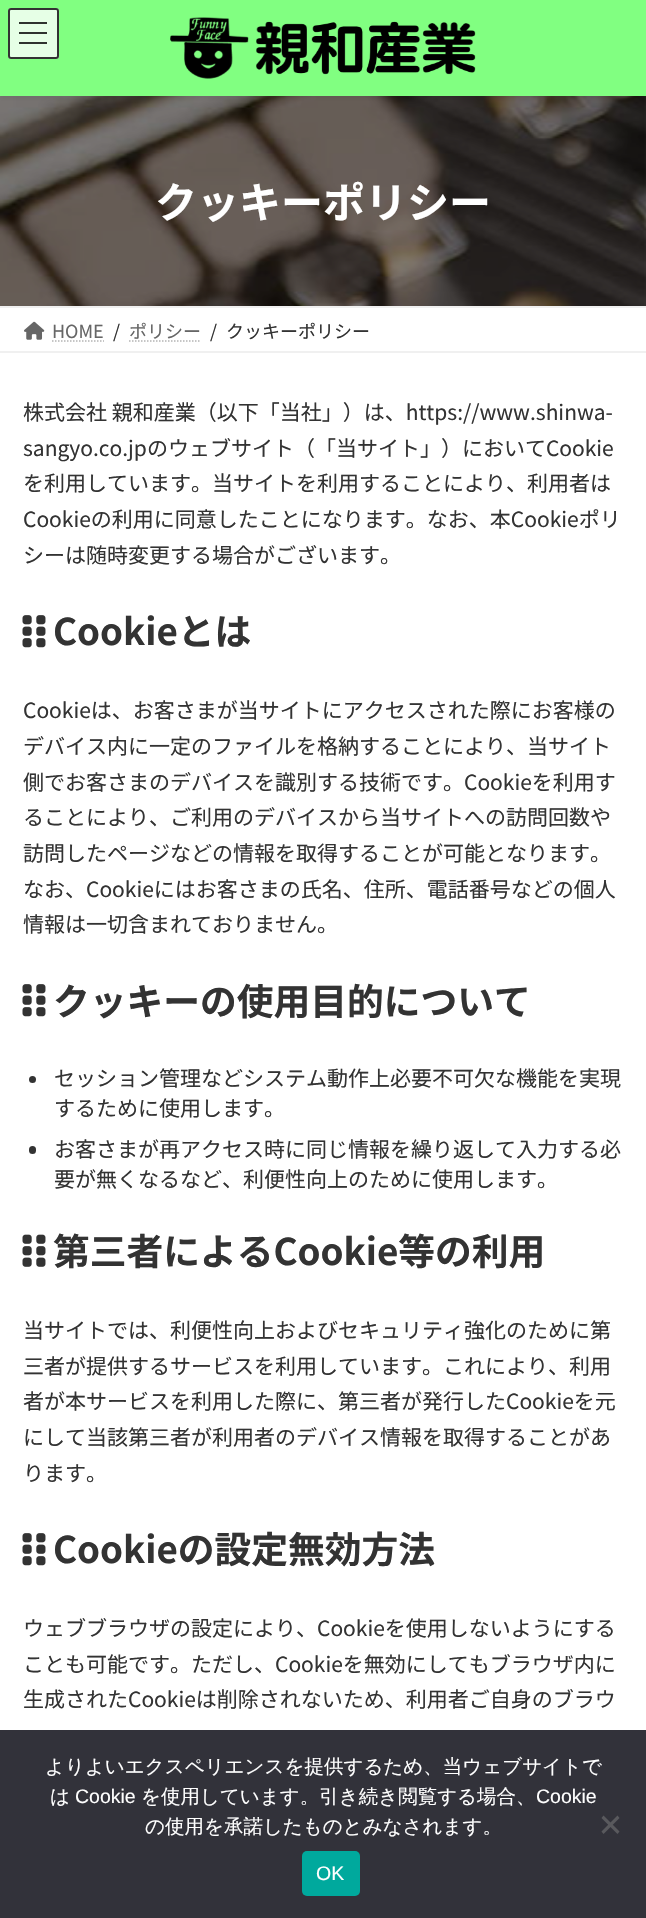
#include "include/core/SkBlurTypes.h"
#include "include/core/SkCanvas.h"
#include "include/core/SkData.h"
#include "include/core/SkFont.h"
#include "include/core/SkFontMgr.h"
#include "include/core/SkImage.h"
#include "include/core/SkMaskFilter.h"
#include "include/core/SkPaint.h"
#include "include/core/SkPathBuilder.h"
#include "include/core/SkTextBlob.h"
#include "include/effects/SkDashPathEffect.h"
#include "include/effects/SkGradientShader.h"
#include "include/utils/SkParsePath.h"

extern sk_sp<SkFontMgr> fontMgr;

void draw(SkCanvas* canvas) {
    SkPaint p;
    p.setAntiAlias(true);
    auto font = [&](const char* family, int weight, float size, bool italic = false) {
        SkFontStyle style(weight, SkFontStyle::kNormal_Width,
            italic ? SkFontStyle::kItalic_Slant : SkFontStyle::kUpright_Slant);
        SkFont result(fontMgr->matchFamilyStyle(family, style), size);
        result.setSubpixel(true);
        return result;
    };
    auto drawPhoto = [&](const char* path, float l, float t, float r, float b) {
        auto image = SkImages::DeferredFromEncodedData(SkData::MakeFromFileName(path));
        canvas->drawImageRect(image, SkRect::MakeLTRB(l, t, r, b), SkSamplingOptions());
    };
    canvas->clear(0xFFFFFFFF);
    drawPhoto("media/2.png", 0, 96, 646, 306);
    p.setColor(0x0D000000);
    p.setMaskFilter(SkMaskFilter::MakeBlur(kNormal_SkBlurStyle, 2));
    canvas->drawRect(SkRect::MakeLTRB(0, 2, 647, 98), p);
    p.setMaskFilter(nullptr);
    p.setColor(0xFF81FF81);
    canvas->drawRect(SkRect::MakeLTRB(0, 0, 646, 96), p);
    drawPhoto("media/1.png", 170, 17, 476, 79);
    p.setColor(0xFFE6FFE6);
    canvas->drawRoundRect(SkRect::MakeLTRB(8, 8, 59, 59), 3, 3, p);
    {
        const struct { float l, t, r, b; SkColor color; } items[] = {
            {19, 22, 47, 24, 0xFF2E332E},
            {19, 32, 47, 34, 0xFF2E332E},
            {19, 42, 47, 44, 0xFF2E332E},
        };
        for (auto [l, t, r, b, color] : items) {
            p.setColor(color);
            canvas->drawRect(SkRect::MakeLTRB(l, t, r, b), p);
        }
    }
    p.setStyle(SkPaint::kStroke_Style);
    p.setStrokeWidth(2);
    p.setColor(0xFF333333);
    canvas->drawRoundRect(SkRect::MakeLTRB(9, 9, 58, 58), 2, 2, p);
    auto font1 = font("Noto Sans JP", 700, 42);
    p.setStyle(SkPaint::kFill_Style);
    p.setColor(0xFFFFFFFF);
    canvas->drawString("クッキーポリシー", 155, 218, font1, p);
    p.setColor(0xFFF0F0F0);
    canvas->drawRect(SkRect::MakeLTRB(0, 306, 646, 308), p);
    canvas->drawRect(SkRect::MakeLTRB(0, 351, 646, 353), p);
    drawPhoto("media/3.png", 24, 321, 45, 340);
    auto font2 = font("Noto Sans JP", 400, 18);
    p.setColor(0xFF666666);
    canvas->drawString("HOME", 52, 338, font2, p);
    p.setStyle(SkPaint::kStroke_Style);
    p.setStrokeWidth(1.5f);
    p.setColor(0xFFB3B3B3);
    p.setPathEffect(SkDashPathEffect::Make({{1.5f, 1.5f}}, 0));
    canvas->drawPath(SkPathBuilder().moveTo(52, 341).lineTo(104, 341).detach(), p);
    p.setPathEffect(nullptr);
    p.setStyle(SkPaint::kFill_Style);
    p.setColor(0xFF333333);
    canvas->drawString("/", 113, 338, font2, p);
    p.setColor(0xFF666666);
    canvas->drawString("ポリシー", 129, 338, font2, p);
    p.setStyle(SkPaint::kStroke_Style);
    p.setColor(0xFFB3B3B3);
    p.setPathEffect(SkDashPathEffect::Make({{1.5f, 1.5f}}, 0));
    canvas->drawPath(SkPathBuilder().moveTo(129, 341).lineTo(201, 341).detach(), p);
    p.setPathEffect(nullptr);
    p.setStyle(SkPaint::kFill_Style);
    p.setColor(0xFF333333);
    canvas->drawString("/", 210, 338, font2, p);
    canvas->drawString("クッキーポリシー", 226, 338, font2, p);
    auto font3 = font("Noto Sans JP", 400, 21);
    {
        const struct { const char* s; float x, y; } items[] = {
            {"株式会社 親和産業（以下「当社」）は、https://www.shinwa-", 23, 420},
            {"sangyo.co.jpのウェブサイト（「当サイト」）においてCookie", 23, 456},
            {"を利用しています。当サイトを利用することにより、利用者は", 23, 491},
            {"Cookieの利用に同意したことになります。なお、本Cookieポリ", 23, 527},
            {"シーは随時変更する場合がございます。", 23, 563},
        };
        for (auto [s, x, y] : items) {
            canvas->drawString(s, x, y, font3, p);
        }
    }
    drawPhoto("media/4.png", 22, 615, 46, 648);
    auto font4 = font("Noto Sans JP", 700, 36.75f);
    canvas->drawString("Cookieとは", 53, 645, font4, p);
    {
        const struct { const char* s; float x, y; } items[] = {
            {"Cookieは、お客さまが当サイトにアクセスされた際にお客様の", 23, 718},
            {"デバイス内に一定のファイルを格納することにより、当サイト", 23, 754},
            {"側でお客さまのデバイスを識別する技術です。Cookieを利用す", 23, 790},
            {"ることにより、ご利用のデバイスから当サイトへの訪問回数や", 23, 825},
            {"訪問したページなどの情報を取得することが可能となります。", 23, 861},
            {"なお、Cookieにはお客さまの氏名、住所、電話番号などの個人", 23, 897},
            {"情報は一切含まれておりません。", 23, 932},
        };
        for (auto [s, x, y] : items) {
            canvas->drawString(s, x, y, font3, p);
        }
    }
    drawPhoto("media/4.png", 22, 984, 46, 1017);
    canvas->drawString("クッキーの使用目的について", 53, 1015, font4, p);
    canvas->drawCircle(32.5f, 1079.5f, 3.5f, p);
    canvas->drawString("セッション管理などシステム動作上必要不可欠な機能を実現", 54, 1086, font3, p);
    canvas->drawString("するために使用します。", 54, 1116, font3, p);
    canvas->drawRoundRect(SkRect::MakeLTRB(29, 1146, 36, 1154), 3.5f, 3.5f, p);
    canvas->drawString("お客さまが再アクセス時に同じ情報を繰り返して入力する必", 54, 1157, font3, p);
    canvas->drawString("要が無くなるなど、利便性向上のために使用します。", 54, 1187, font3, p);
    drawPhoto("media/5.png", 22, 1234, 46, 1267);
    canvas->drawString("第三者によるCookie等の利用", 53, 1265, font4, p);
    {
        const struct { const char* s; float x, y; } items[] = {
            {"当サイトでは、利便性向上およびセキュリティ強化のために第", 23, 1338},
            {"三者が提供するサービスを利用しています。これにより、利用", 23, 1374},
            {"者が本サービスを利用した際に、第三者が発行したCookieを元", 23, 1409},
            {"にして当該第三者が利用者のデバイス情報を取得することがあ", 23, 1445},
            {"ります。", 23, 1481},
        };
        for (auto [s, x, y] : items) {
            canvas->drawString(s, x, y, font3, p);
        }
    }
    drawPhoto("media/4.png", 22, 1533, 46, 1566);
    canvas->drawString("Cookieの設定無効方法", 53, 1563, font4, p);
    {
        const struct { const char* s; float x, y; } items[] = {
            {"ウェブブラウザの設定により、Cookieを使用しないようにする", 23, 1636},
            {"ことも可能です。ただし、Cookieを無効にしてもブラウザ内に", 23, 1672},
            {"生成されたCookieは削除されないため、利用者ご自身のブラウ", 23, 1707},
        };
        for (auto [s, x, y] : items) {
            canvas->drawString(s, x, y, font3, p);
        }
    }
    p.setColor(0xFF32323A);
    canvas->drawRect(SkRect::MakeLTRB(0, 1730, 646, 1918), p);
    auto font5 = font("WenQuanYi Zen Hei", 500, 19.5f);
    p.setColor(0xFFFFFFFF);
    canvas->drawString("よりよいエクスペリエンスを提供するため、当ウェブサイトで", 45, 1773, font5, p);
    canvas->drawString("は", 50, 1803, font5, p);
    auto font6 = font("Liberation Sans", 400, 19.5f);
    canvas->drawString("Cookie", 75, 1803, font6, p);
    canvas->drawString("を使用しています。引き続き閲覧する場合、", 141, 1803, font5, p);
    canvas->drawString("Cookie", 536, 1803, font6, p);
    canvas->drawString("の使用を承諾したものとみなされます。", 145, 1833, font5, p);
    p.setColor(0xFF59595D);
    canvas->drawPath(SkPathBuilder().moveTo(617.5f, 1815.5f).lineTo(619.5f, 1818).lineTo(603.5f, 1834).lineTo(601.5f, 1831.5f).close().detach(), p);
    canvas->drawPath(SkPathBuilder().moveTo(601.5f, 1818).lineTo(603.5f, 1815.5f).lineTo(619.5f, 1831.5f).lineTo(617.5f, 1834).close().detach(), p);
    p.setColor(0xFF00A99D);
    canvas->drawRoundRect(SkRect::MakeLTRB(302, 1851, 360, 1896), 5, 5, p);
    p.setColor(0xFFFFFFFF);
    canvas->drawString("OK", 316, 1880, font6, p);
}
